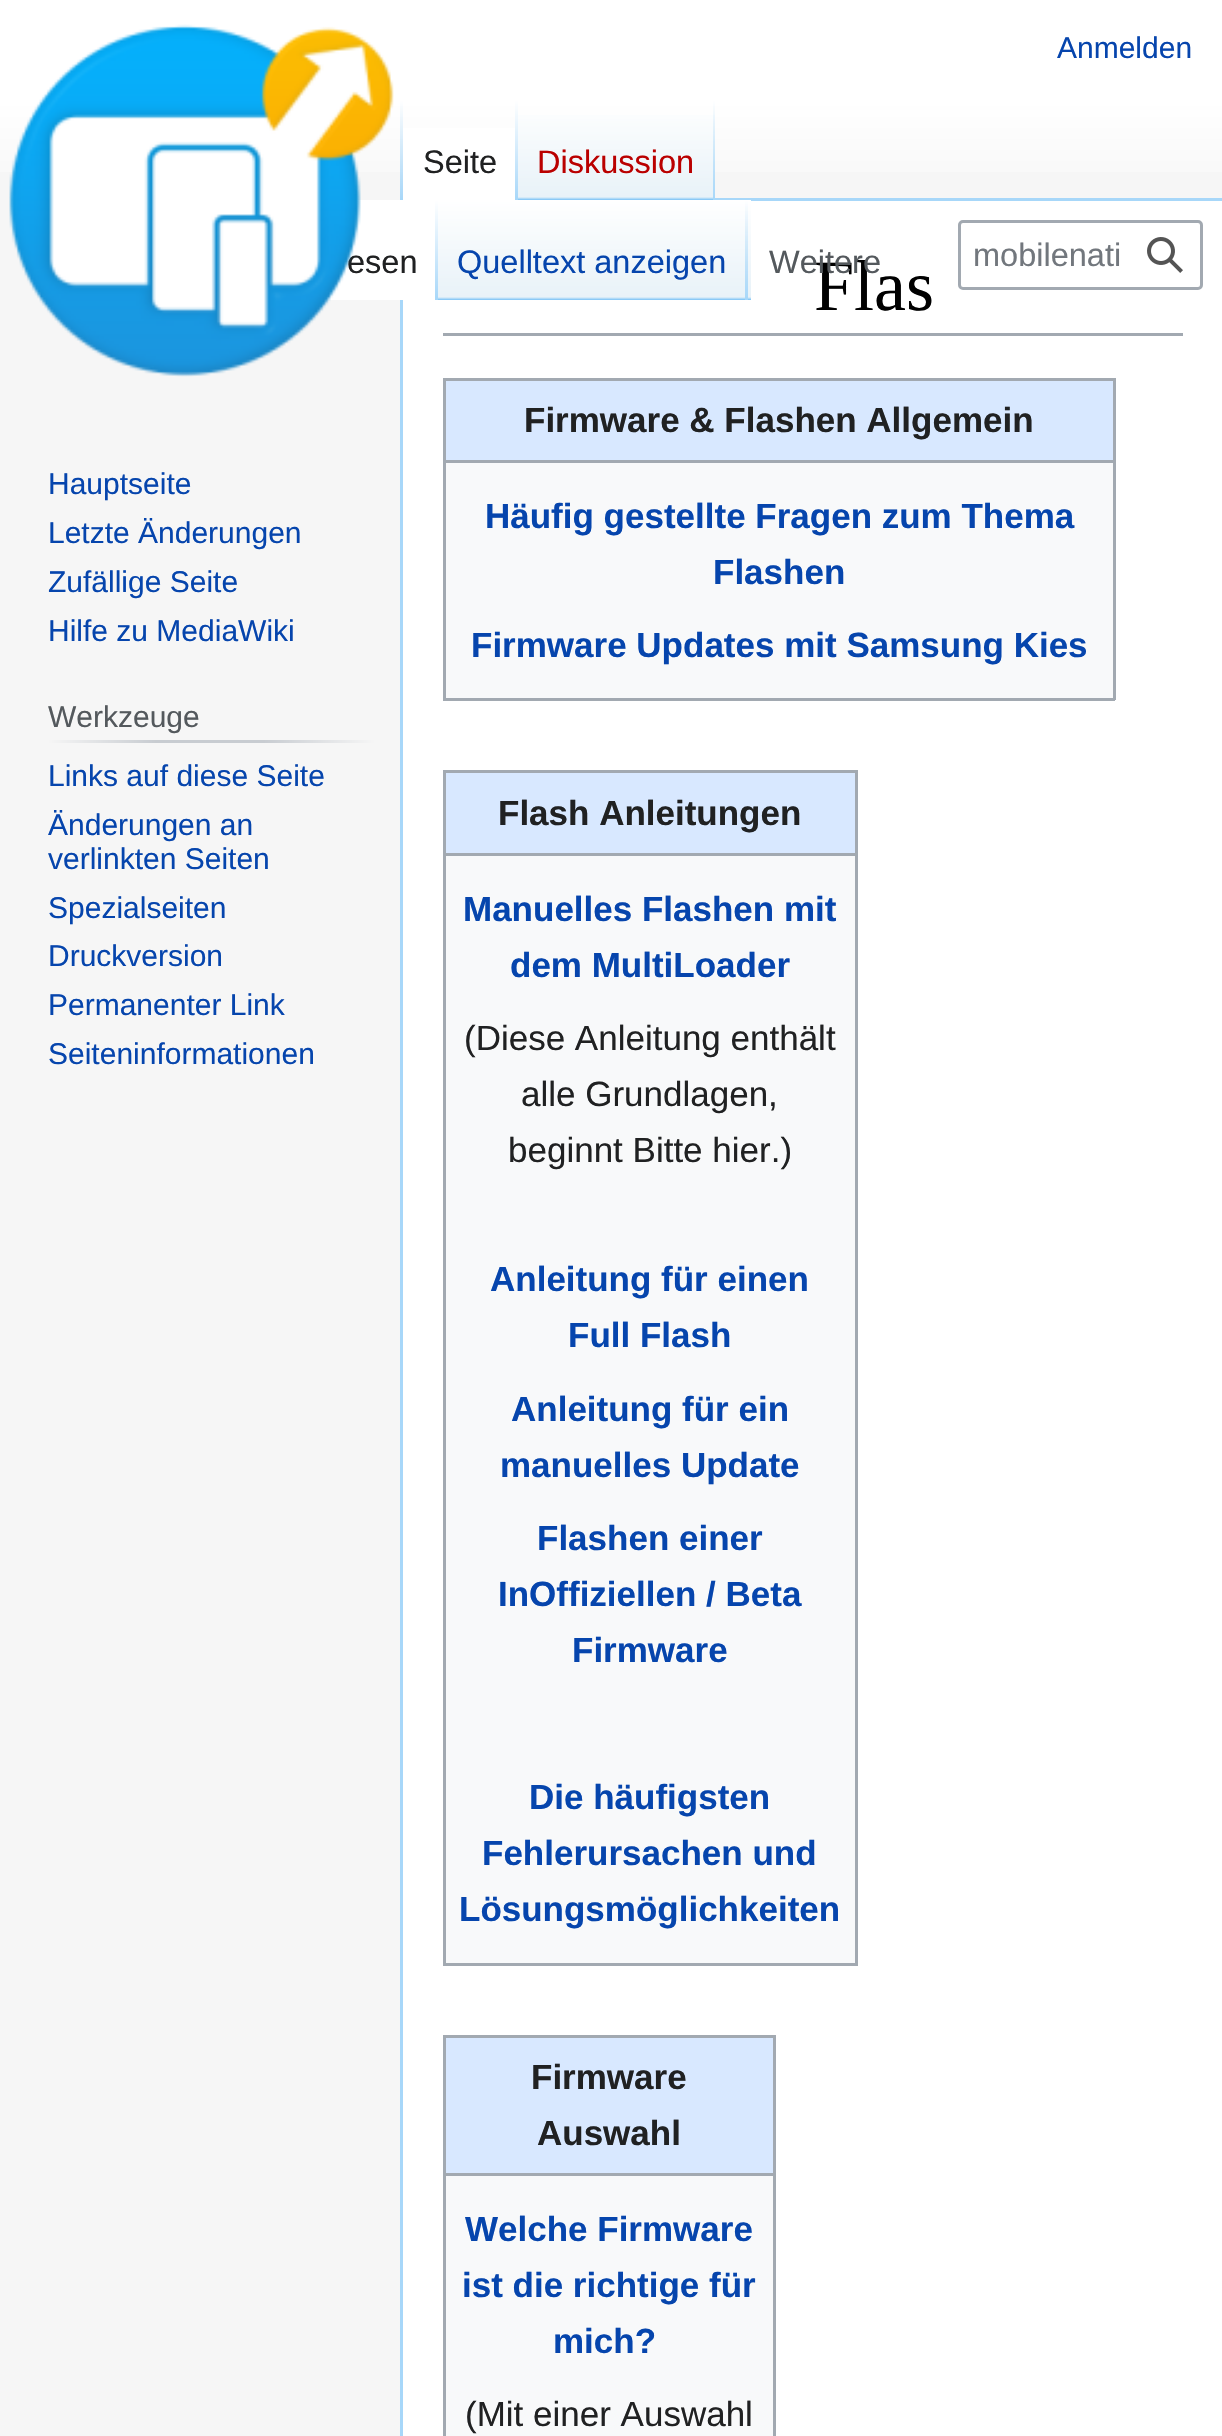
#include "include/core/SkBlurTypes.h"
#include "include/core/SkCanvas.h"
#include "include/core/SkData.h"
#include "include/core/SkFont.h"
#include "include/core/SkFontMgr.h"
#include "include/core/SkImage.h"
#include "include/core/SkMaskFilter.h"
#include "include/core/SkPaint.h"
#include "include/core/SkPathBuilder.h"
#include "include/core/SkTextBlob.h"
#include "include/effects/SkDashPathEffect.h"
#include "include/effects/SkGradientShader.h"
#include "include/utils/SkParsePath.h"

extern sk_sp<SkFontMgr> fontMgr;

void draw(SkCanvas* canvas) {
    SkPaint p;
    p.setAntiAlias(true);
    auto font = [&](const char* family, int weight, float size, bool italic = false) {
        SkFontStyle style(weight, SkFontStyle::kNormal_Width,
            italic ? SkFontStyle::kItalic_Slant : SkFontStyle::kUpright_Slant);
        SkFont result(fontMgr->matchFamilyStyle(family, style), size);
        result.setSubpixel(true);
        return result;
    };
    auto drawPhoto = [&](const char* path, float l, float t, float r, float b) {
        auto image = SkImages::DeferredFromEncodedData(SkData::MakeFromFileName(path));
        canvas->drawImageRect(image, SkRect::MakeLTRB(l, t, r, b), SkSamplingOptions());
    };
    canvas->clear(0xFFF6F6F6);
    {
        const SkColor colors[] = {0xFFFFFFFF, 0xFFF6F6F6};
        const float stops[] = {0.5f, 1};
        const SkPoint ends[] = {{611, 0}, {611, 200}};
        p.setShader(SkGradientShader::MakeLinear(ends, colors, stops, 2, SkTileMode::kClamp));
        p.setAlpha(255);
    }
    canvas->drawRect(SkRect::MakeLTRB(0, 0, 1222, 172), p);
    auto font1 = font("Liberation Sans", 400, 30);
    p.setShader(nullptr);
    p.setColor(0xFF0645AD);
    canvas->drawString("Anmelden", 1057, 58, font1, p);
    p.setColor(0xFFA7D7F9);
    canvas->drawRect(SkRect::MakeLTRB(400, 198, 403, 2436), p);
    {
        const SkColor colors[] = {0x00A7D7F9, 0xFFA7D7F9};
        const float stops[] = {0, 1};
        const SkPoint ends[] = {{401, 100}, {401, 200}};
        p.setShader(SkGradientShader::MakeLinear(ends, colors, stops, 2, SkTileMode::kClamp));
        p.setAlpha(255);
    }
    canvas->drawRect(SkRect::MakeLTRB(400, 100, 403, 200), p);
    p.setShader(nullptr);
    p.setColor(0xFFFFFFFF);
    canvas->drawRect(SkRect::MakeLTRB(403, 128, 515, 200), p);
    {
        const SkColor colors[] = {0xFFFFFFFF, 0xFFA7D7F9};
        const float stops[] = {0, 1};
        const SkPoint ends[] = {{516, 100}, {516, 200}};
        p.setShader(SkGradientShader::MakeLinear(ends, colors, stops, 2, SkTileMode::kClamp));
        p.setAlpha(255);
    }
    canvas->drawRect(SkRect::MakeLTRB(515, 100, 518, 200), p);
    auto font2 = font("Liberation Sans", 400, 32.5f);
    p.setShader(nullptr);
    p.setColor(0xFF202122);
    canvas->drawString("Seite", 423, 173, font2, p);
    {
        const SkColor colors[] = {0xFF77C1F6, 0xFFE8F2F8, 0xFFFFFFFF};
        const float stops[] = {0, 0.03f, 1};
        const SkPoint ends[] = {{616, 200}, {616, 100}};
        p.setShader(SkGradientShader::MakeLinear(ends, colors, stops, 3, SkTileMode::kClamp));
        p.setAlpha(255);
    }
    canvas->drawRect(SkRect::MakeLTRB(518, 115, 715, 200), p);
    {
        const SkColor colors[] = {0x00A7D7F9, 0xFFA7D7F9};
        const float stops[] = {0, 1};
        const SkPoint ends[] = {{714, 100}, {714, 200}};
        p.setShader(SkGradientShader::MakeLinear(ends, colors, stops, 2, SkTileMode::kClamp));
        p.setAlpha(255);
    }
    canvas->drawRect(SkRect::MakeLTRB(713, 100, 715, 200), p);
    p.setShader(nullptr);
    p.setColor(0xFFBA0000);
    canvas->drawString("Diskussion", 537, 173, font2, p);
    p.setColor(0xFFFFFFFF);
    canvas->drawRect(SkRect::MakeLTRB(403, 201, 1222, 2436), p);
    canvas->drawRect(SkRect::MakeLTRB(324, 200, 435, 300), p);
    {
        const SkColor colors[] = {0xFFFFFFFF, 0xFFA7D7F9};
        const float stops[] = {0, 1};
        const SkPoint ends[] = {{436, 200}, {436, 300}};
        p.setShader(SkGradientShader::MakeLinear(ends, colors, stops, 2, SkTileMode::kClamp));
        p.setAlpha(255);
    }
    canvas->drawRect(SkRect::MakeLTRB(435, 200, 438, 300), p);
    p.setShader(nullptr);
    p.setColor(0xFF202122);
    canvas->drawString("esen", 347, 273, font2, p);
    p.setColor(0xFFA7D7F9);
    canvas->drawRect(SkRect::MakeLTRB(715, 198, 1222, 201), p);
    {
        const SkColor colors[] = {0xFF77C1F6, 0xFFE8F2F8, 0xFFFFFFFF};
        const float stops[] = {0, 0.03f, 1};
        const SkPoint ends[] = {{593, 300}, {593, 200}};
        p.setShader(SkGradientShader::MakeLinear(ends, colors, stops, 3, SkTileMode::kClamp));
        p.setAlpha(255);
    }
    canvas->drawRect(SkRect::MakeLTRB(438, 200, 748, 300), p);
    {
        const SkColor colors[] = {0x00A7D7F9, 0xFFA7D7F9};
        const float stops[] = {0, 1};
        const SkPoint ends[] = {{746, 200}, {746, 300}};
        p.setShader(SkGradientShader::MakeLinear(ends, colors, stops, 2, SkTileMode::kClamp));
        p.setAlpha(255);
    }
    canvas->drawRect(SkRect::MakeLTRB(745, 200, 748, 300), p);
    p.setShader(nullptr);
    p.setColor(0xFF0645AD);
    canvas->drawString("Quelltext anzeigen", 457, 273, font2, p);
    {
        const SkColor colors[] = {0xFF77C1F6, 0xFFE8F2F8, 0xFFFFFFFF};
        const float stops[] = {0, 0.03f, 1};
        const SkPoint ends[] = {{749, 300}, {749, 200}};
        p.setShader(SkGradientShader::MakeLinear(ends, colors, stops, 3, SkTileMode::kClamp));
        p.setAlpha(255);
    }
    canvas->drawRect(SkRect::MakeLTRB(748, 200, 751, 300), p);
    auto font3 = font("Liberation Serif", 400, 72);
    p.setShader(nullptr);
    p.setColor(0xFF000000);
    canvas->drawString("Flas", 814, 310, font3, p);
    p.setColor(0xFF54595D);
    canvas->drawString("Weitere", 769, 273, font2, p);
    p.setStyle(SkPaint::kStroke_Style);
    p.setStrokeWidth(3);
    p.setColor(0xFFA2A9B1);
    canvas->drawRoundRect(SkRect::MakeLTRB(959.5f, 221.5f, 1201.5f, 288.5f), 3.5f, 3.5f, p);
    p.setStyle(SkPaint::kFill_Style);
    p.setColor(0xFF72777D);
    canvas->drawString("mobilenati", 973, 266, font2, p);
    drawPhoto("media/1.png", 1147, 237, 1183, 273);
    drawPhoto("media/2.png", 9, 24, 394, 377);
    p.setColor(0xFF0645AD);
    {
        const struct { const char* s; float x, y; } items[] = {
            {"Hauptseite", 48, 494},
            {"Letzte Änderungen", 48, 543},
            {"Zufällige Seite", 48, 592},
            {"Hilfe zu MediaWiki", 48, 641},
        };
        for (auto [s, x, y] : items) {
            canvas->drawString(s, x, y, font1, p);
        }
    }
    {
        const SkColor colors[] = {0xFFF6F6F6, 0xFFC8CCD1, 0xFFC8CCD1, 0xFFF6F6F6};
        const float stops[] = {0, 0.33f, 0.66f, 1};
        const SkPoint ends[] = {{48, 741}, {375, 741}};
        p.setShader(SkGradientShader::MakeLinear(ends, colors, stops, 4, SkTileMode::kClamp));
        p.setAlpha(255);
    }
    canvas->drawRect(SkRect::MakeLTRB(48, 740, 375, 743), p);
    p.setShader(nullptr);
    p.setColor(0xFF54595D);
    canvas->drawString("Werkzeuge", 48, 727, font1, p);
    p.setColor(0xFF0645AD);
    {
        const struct { const char* s; float x, y; } items[] = {
            {"Links auf diese Seite", 48, 786},
            {"Änderungen an", 48, 835},
            {"verlinkten Seiten", 48, 869},
            {"Spezialseiten", 48, 918},
            {"Druckversion", 48, 966},
            {"Permanenter Link", 48, 1015},
            {"Seiteninformationen", 48, 1064},
        };
        for (auto [s, x, y] : items) {
            canvas->drawString(s, x, y, font1, p);
        }
    }
    {
        const struct { float l, t, r, b; SkColor color; } items[] = {
            {443, 333, 1183, 336, 0xFFA2A9B1},
            {446, 463, 1113, 698, 0xFFF8F9FA},
            {443, 378, 1115, 381, 0xFFA2A9B1},
            {1113, 378, 1116, 700, 0xFFA2A9B1},
            {443, 698, 1115, 701, 0xFFA2A9B1},
            {443, 378, 446, 700, 0xFFA2A9B1},
            {446, 381, 1113, 460, 0xFFD8E8FF},
        };
        for (auto [l, t, r, b, color] : items) {
            p.setColor(color);
            canvas->drawRect(SkRect::MakeLTRB(l, t, r, b), p);
        }
    }
    auto font4 = font("Liberation Sans", 700, 35);
    p.setColor(0xFF202122);
    canvas->drawString("Firmware & Flashen Allgemein", 524, 432, font4, p);
    p.setColor(0xFFA2A9B1);
    canvas->drawRect(SkRect::MakeLTRB(443, 460, 1115, 463), p);
    p.setColor(0xFF0645AD);
    {
        const struct { const char* s; float x, y; } items[] = {
            {"Häufig gestellte Fragen zum Thema", 485, 528},
            {"Flashen", 713, 584},
            {"Firmware Updates mit Samsung Kies", 471, 657},
        };
        for (auto [s, x, y] : items) {
            canvas->drawString(s, x, y, font4, p);
        }
    }
    {
        const struct { float l, t, r, b; SkColor color; } items[] = {
            {446, 856, 855, 1963, 0xFFF8F9FA},
            {443, 770, 858, 773, 0xFFA2A9B1},
            {855, 770, 858, 1965, 0xFFA2A9B1},
            {443, 1963, 858, 1966, 0xFFA2A9B1},
            {443, 770, 446, 1965, 0xFFA2A9B1},
            {446, 773, 855, 853, 0xFFD8E8FF},
        };
        for (auto [l, t, r, b, color] : items) {
            p.setColor(color);
            canvas->drawRect(SkRect::MakeLTRB(l, t, r, b), p);
        }
    }
    p.setColor(0xFF202122);
    canvas->drawString("Flash Anleitungen", 498, 825, font4, p);
    p.setColor(0xFFA2A9B1);
    canvas->drawRect(SkRect::MakeLTRB(443, 853, 858, 856), p);
    p.setColor(0xFF0645AD);
    canvas->drawString("Manuelles Flashen mit", 463, 921, font4, p);
    canvas->drawString("dem MultiLoader", 510, 977, font4, p);
    auto font5 = font("Liberation Sans", 400, 35);
    p.setColor(0xFF202122);
    {
        const struct { const char* s; float x, y; } items[] = {
            {"(Diese Anleitung enthält", 464, 1050},
            {"alle Grundlagen,", 521, 1106},
            {"beginnt Bitte hier.)", 508, 1162},
        };
        for (auto [s, x, y] : items) {
            canvas->drawString(s, x, y, font5, p);
        }
    }
    p.setColor(0xFF0645AD);
    {
        const struct { const char* s; float x, y; } items[] = {
            {"Anleitung für einen", 490, 1291},
            {"Full Flash", 568, 1347},
            {"Anleitung für ein", 511, 1421},
            {"manuelles Update", 500, 1477},
            {"Flashen einer", 537, 1550},
            {"InOffiziellen / Beta", 498, 1606},
            {"Firmware", 572, 1662},
            {"Die häufigsten", 529, 1809},
            {"Fehlerursachen und", 482, 1865},
            {"Lösungsmöglichkeiten", 459, 1921},
        };
        for (auto [s, x, y] : items) {
            canvas->drawString(s, x, y, font4, p);
        }
    }
    {
        const struct { float l, t, r, b; SkColor color; } items[] = {
            {446, 2176, 773, 2436, 0xFFF8F9FA},
            {443, 2035, 775, 2038, 0xFFA2A9B1},
            {773, 2035, 776, 2436, 0xFFA2A9B1},
            {443, 2035, 446, 2436, 0xFFA2A9B1},
            {446, 2038, 773, 2173, 0xFFD8E8FF},
        };
        for (auto [l, t, r, b, color] : items) {
            p.setColor(color);
            canvas->drawRect(SkRect::MakeLTRB(l, t, r, b), p);
        }
    }
    p.setColor(0xFF202122);
    canvas->drawString("Firmware", 531, 2089, font4, p);
    canvas->drawString("Auswahl", 537, 2145, font4, p);
    p.setColor(0xFFA2A9B1);
    canvas->drawRect(SkRect::MakeLTRB(443, 2173, 775, 2176), p);
    p.setColor(0xFF0645AD);
    {
        const struct { const char* s; float x, y; } items[] = {
            {"Welche Firmware", 465, 2241},
            {"ist die richtige für", 462, 2297},
            {"mich?", 553, 2353},
        };
        for (auto [s, x, y] : items) {
            canvas->drawString(s, x, y, font4, p);
        }
    }
    p.setColor(0xFF202122);
    canvas->drawString("(Mit einer Auswahl", 465, 2426, font5, p);
}
